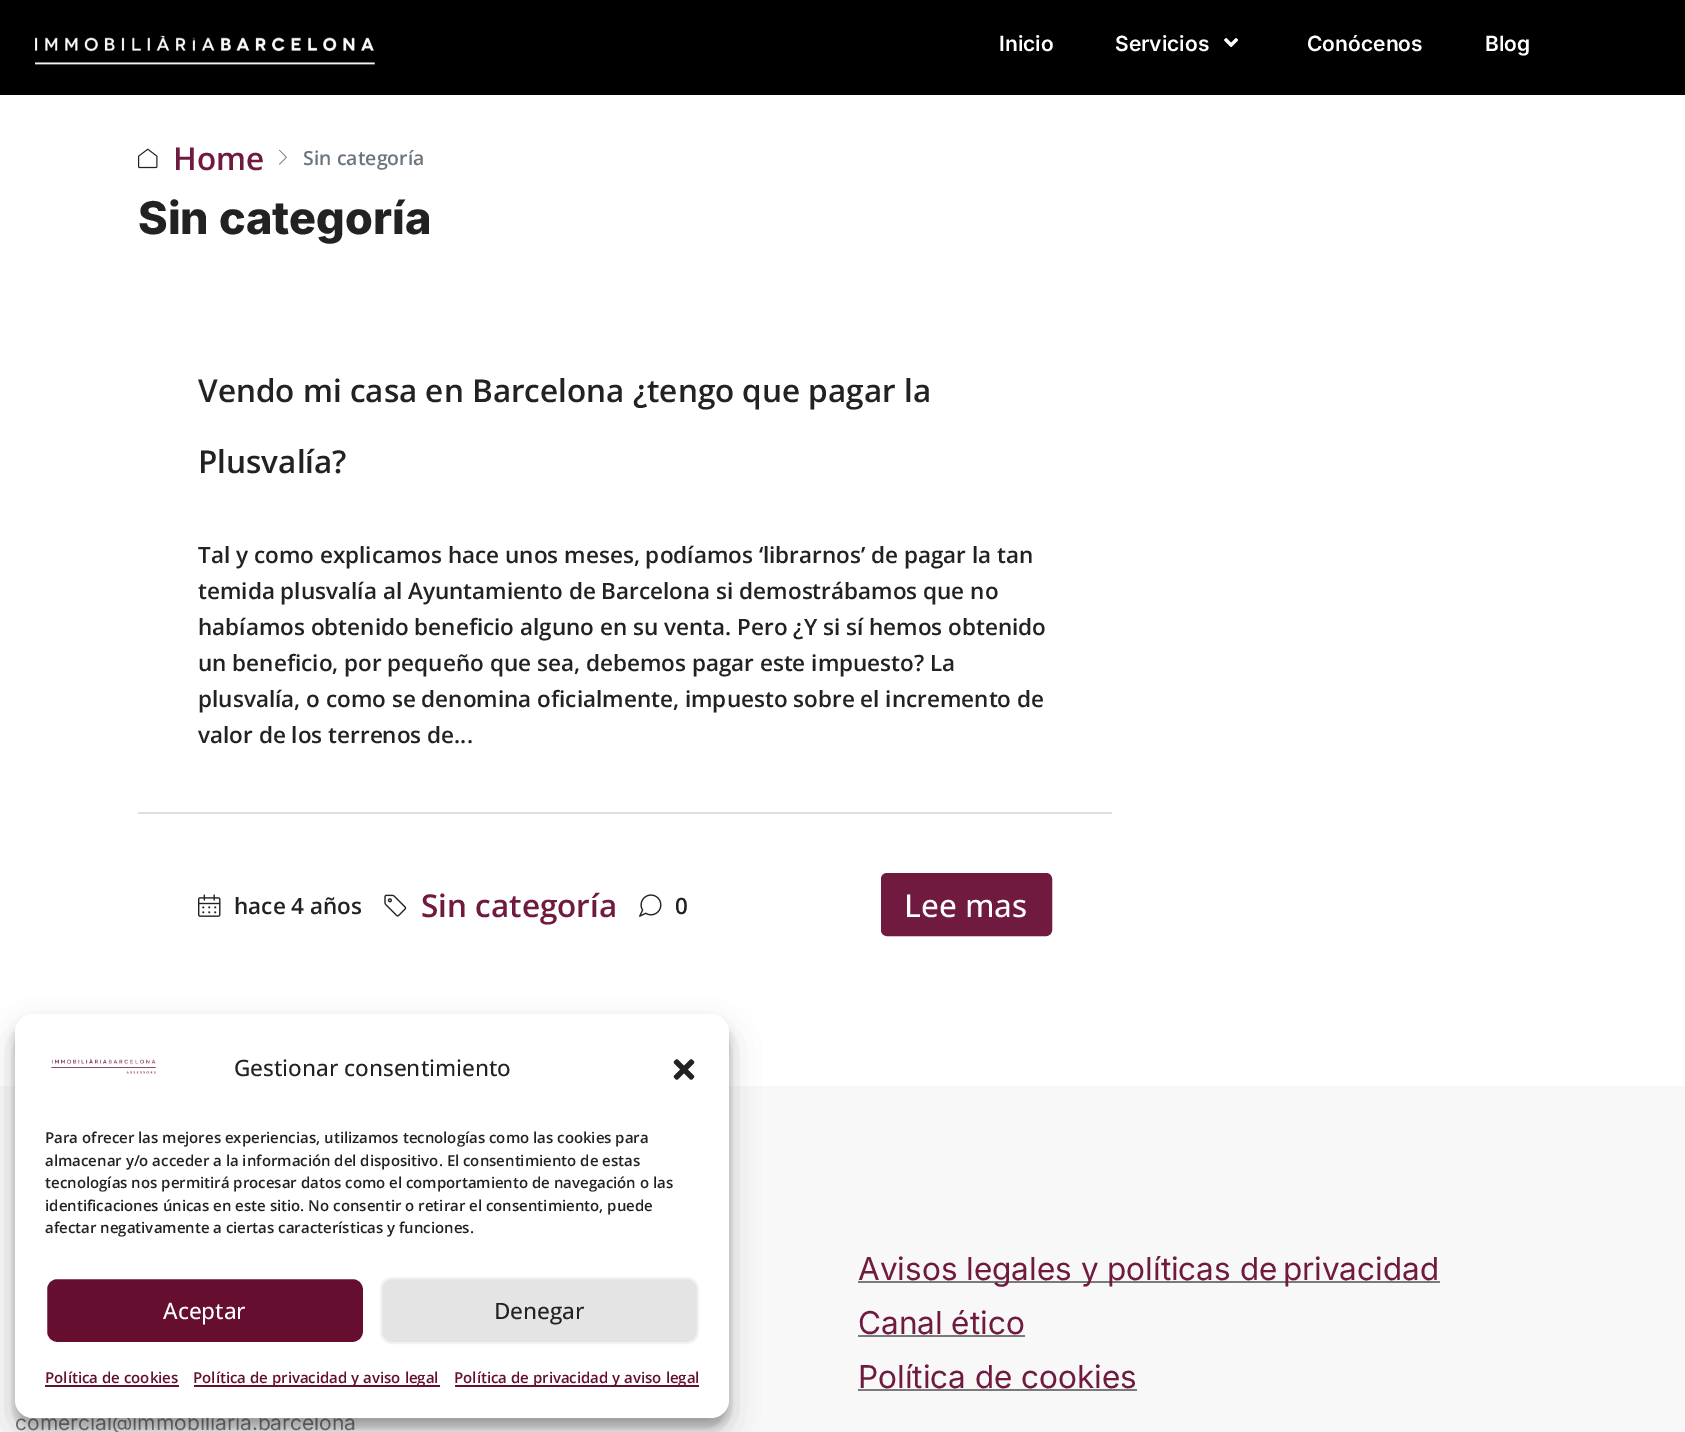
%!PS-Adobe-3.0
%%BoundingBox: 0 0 1685 1432
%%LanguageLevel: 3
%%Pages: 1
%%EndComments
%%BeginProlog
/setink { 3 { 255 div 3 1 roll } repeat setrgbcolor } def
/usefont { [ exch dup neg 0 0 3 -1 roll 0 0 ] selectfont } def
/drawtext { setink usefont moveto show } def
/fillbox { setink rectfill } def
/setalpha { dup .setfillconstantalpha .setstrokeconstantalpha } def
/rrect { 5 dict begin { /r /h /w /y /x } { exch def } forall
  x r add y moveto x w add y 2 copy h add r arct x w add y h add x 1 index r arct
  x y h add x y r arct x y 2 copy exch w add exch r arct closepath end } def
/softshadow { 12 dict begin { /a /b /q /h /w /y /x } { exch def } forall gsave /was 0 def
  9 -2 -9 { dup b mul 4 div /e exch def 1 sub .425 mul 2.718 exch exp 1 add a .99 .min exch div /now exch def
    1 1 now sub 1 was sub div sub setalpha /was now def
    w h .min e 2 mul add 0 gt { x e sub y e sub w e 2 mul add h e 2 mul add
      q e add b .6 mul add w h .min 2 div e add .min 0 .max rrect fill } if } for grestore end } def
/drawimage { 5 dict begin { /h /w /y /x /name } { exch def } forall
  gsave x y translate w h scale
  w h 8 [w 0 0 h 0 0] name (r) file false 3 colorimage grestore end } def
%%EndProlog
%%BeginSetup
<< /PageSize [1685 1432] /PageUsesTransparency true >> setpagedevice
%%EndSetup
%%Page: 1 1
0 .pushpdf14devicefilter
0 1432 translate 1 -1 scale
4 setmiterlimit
0 0 1685 1432 255 255 255 fillbox
0 0 1685 95 0 0 0 fillbox
(assets/img1.rgb) 35 35 340 30 drawimage
(Inicio) 999 51 /Inter-SemiBold 21 255 255 255 drawtext
(Servicios) 1115 51 /Inter-SemiBold 21 255 255 255 drawtext
(assets/img2.rgb) 1224 38 15 10 drawimage
(Conócenos) 1307 51 /Inter-SemiBold 21 255 255 255 drawtext
(Blog) 1485 51 /Inter-SemiBold 21 255 255 255 drawtext
(assets/img3.rgb) 138 148 20 21 drawimage
(Home) 173 170 /OpenSans-SemiBold 31.5 112 26 63 drawtext
(assets/img4.rgb) 279 149 8 16 drawimage
(Sin categoría) 303 165 /OpenSans-SemiBold 19.5 108 117 125 drawtext
(Sin categoría) 138 234 /Inter-ExtraBold 45 34 34 34 drawtext
(Vendo mi casa en Barcelona ¿tengo que pagar la) 198 402 /OpenSans-SemiBold 31.5 34 34 34 drawtext
(Plusvalía?) 198 473 /OpenSans-SemiBold 31.5 34 34 34 drawtext
(Tal y como explicamos hace unos meses, podíamos ‘librarnos’ de pagar la tan) 198 563 /OpenSans-SemiBold 22.5 34 34 34 drawtext
(temida plusvalía al Ayuntamiento de Barcelona si demostrábamos que no) 198 599 /OpenSans-SemiBold 22.5 34 34 34 drawtext
(habíamos obtenido beneficio alguno en su venta. Pero ¿Y si sí hemos obtenido) 198 635 /OpenSans-SemiBold 22.5 34 34 34 drawtext
(un beneficio, por pequeño que sea, debemos pagar este impuesto? La) 198 671 /OpenSans-SemiBold 22.5 34 34 34 drawtext
(plusvalía, o como se denomina oficialmente, impuesto sobre el incremento de) 198 707 /OpenSans-SemiBold 22.5 34 34 34 drawtext
(valor de los terrenos de...) 198 743 /OpenSans-SemiBold 22.5 34 34 34 drawtext
138 812 974 2 220 224 224 fillbox
(assets/img5.rgb) 198 894 23 23 drawimage
(hace 4 años) 234 914 /OpenSans-SemiBold 22.5 34 34 34 drawtext
(assets/img6.rgb) 384 894 23 23 drawimage
(Sin categoría) 421 917 /OpenSans-SemiBold 31.5 112 26 63 drawtext
(assets/img7.rgb) 639 894 23 23 drawimage
(0) 675 914 /OpenSans-SemiBold 22.5 34 34 34 drawtext
112 26 63 setink
882 874 169 61 5 rrect gsave fill grestore
2 setlinewidth
stroke
(Lee mas) 904 917 /OpenSans-Medium 31.5 255 255 255 drawtext
0 1086 1685 346 248 248 248 fillbox
858 1281 582 2 122 122 122 fillbox
(Avisos legales y políticas de) 858 1280 /Inter-Regular 31.5 112 26 63 drawtext
(privacidad) 1283 1280 /Inter-Regular 31.5 112 26 63 drawtext
(Canal ético) 858 1334 /Inter-Regular 31.5 112 26 63 drawtext
858 1335 167 2 122 122 122 fillbox
(Política de cookies) 858 1388 /Inter-Regular 31.5 112 26 63 drawtext
858 1389 279 2 122 122 122 fillbox
(comercial@immobiliaria.barcelona) 15 1430 /Inter-Regular 21 122 122 122 drawtext
0 0 0 setink
15 1023 714 404 18 4.5 0.23 softshadow
15 1029 714 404 18 15 0.19 softshadow
255 255 255 setink
15 1014 714 404 18 rrect fill
(assets/img8.rgb) 51 1058 105 16 drawimage
(Gestionar consentimiento) 234 1076 /OpenSans-Medium 22.5 34 34 34 drawtext
(assets/img9.rgb) 673 1059 22 21 drawimage
(Para ofrecer las mejores experiencias, utilizamos tecnologías como las cookies para) 45 1143 /OpenSans-SemiBold 15 34 34 34 drawtext
(almacenar y/o acceder a la información del dispositivo. El consentimiento de estas) 45 1166 /OpenSans-SemiBold 15 34 34 34 drawtext
(tecnologías nos permitirá procesar datos como el comportamiento de navegación o las) 45 1188 /OpenSans-SemiBold 15 34 34 34 drawtext
(identificaciones únicas en este sitio. No consentir o retirar el consentimiento, puede) 45 1211 /OpenSans-SemiBold 15 34 34 34 drawtext
(afectar negativamente a ciertas características y funciones.) 45 1233 /OpenSans-SemiBold 15 34 34 34 drawtext
101 14 47 setink
46 1278 318 65 11 rrect gsave fill grestore
255 255 255 setink
stroke
(Aceptar) 163 1319 /OpenSans-Medium 22.5 255 255 255 drawtext
229 228 228 setink
381 1278 317 65 11 rrect gsave fill grestore
242 242 242 setink
stroke
(Denegar) 494 1319 /OpenSans-Medium 22.5 34 34 34 drawtext
(Política de cookies) 45 1383 /OpenSans-SemiBold 15 101 14 47 drawtext
45 1385 134 2 101 14 47 fillbox
194 1385 246 2 101 14 47 fillbox
(Política de privacidad y aviso legal) 193 1383 /OpenSans-SemiBold 15 101 14 47 drawtext
455 1385 244 2 101 14 47 fillbox
(Política de privacidad y aviso legal) 454 1383 /OpenSans-SemiBold 15 101 14 47 drawtext
.poppdf14devicefilter showpage
%%EOF
